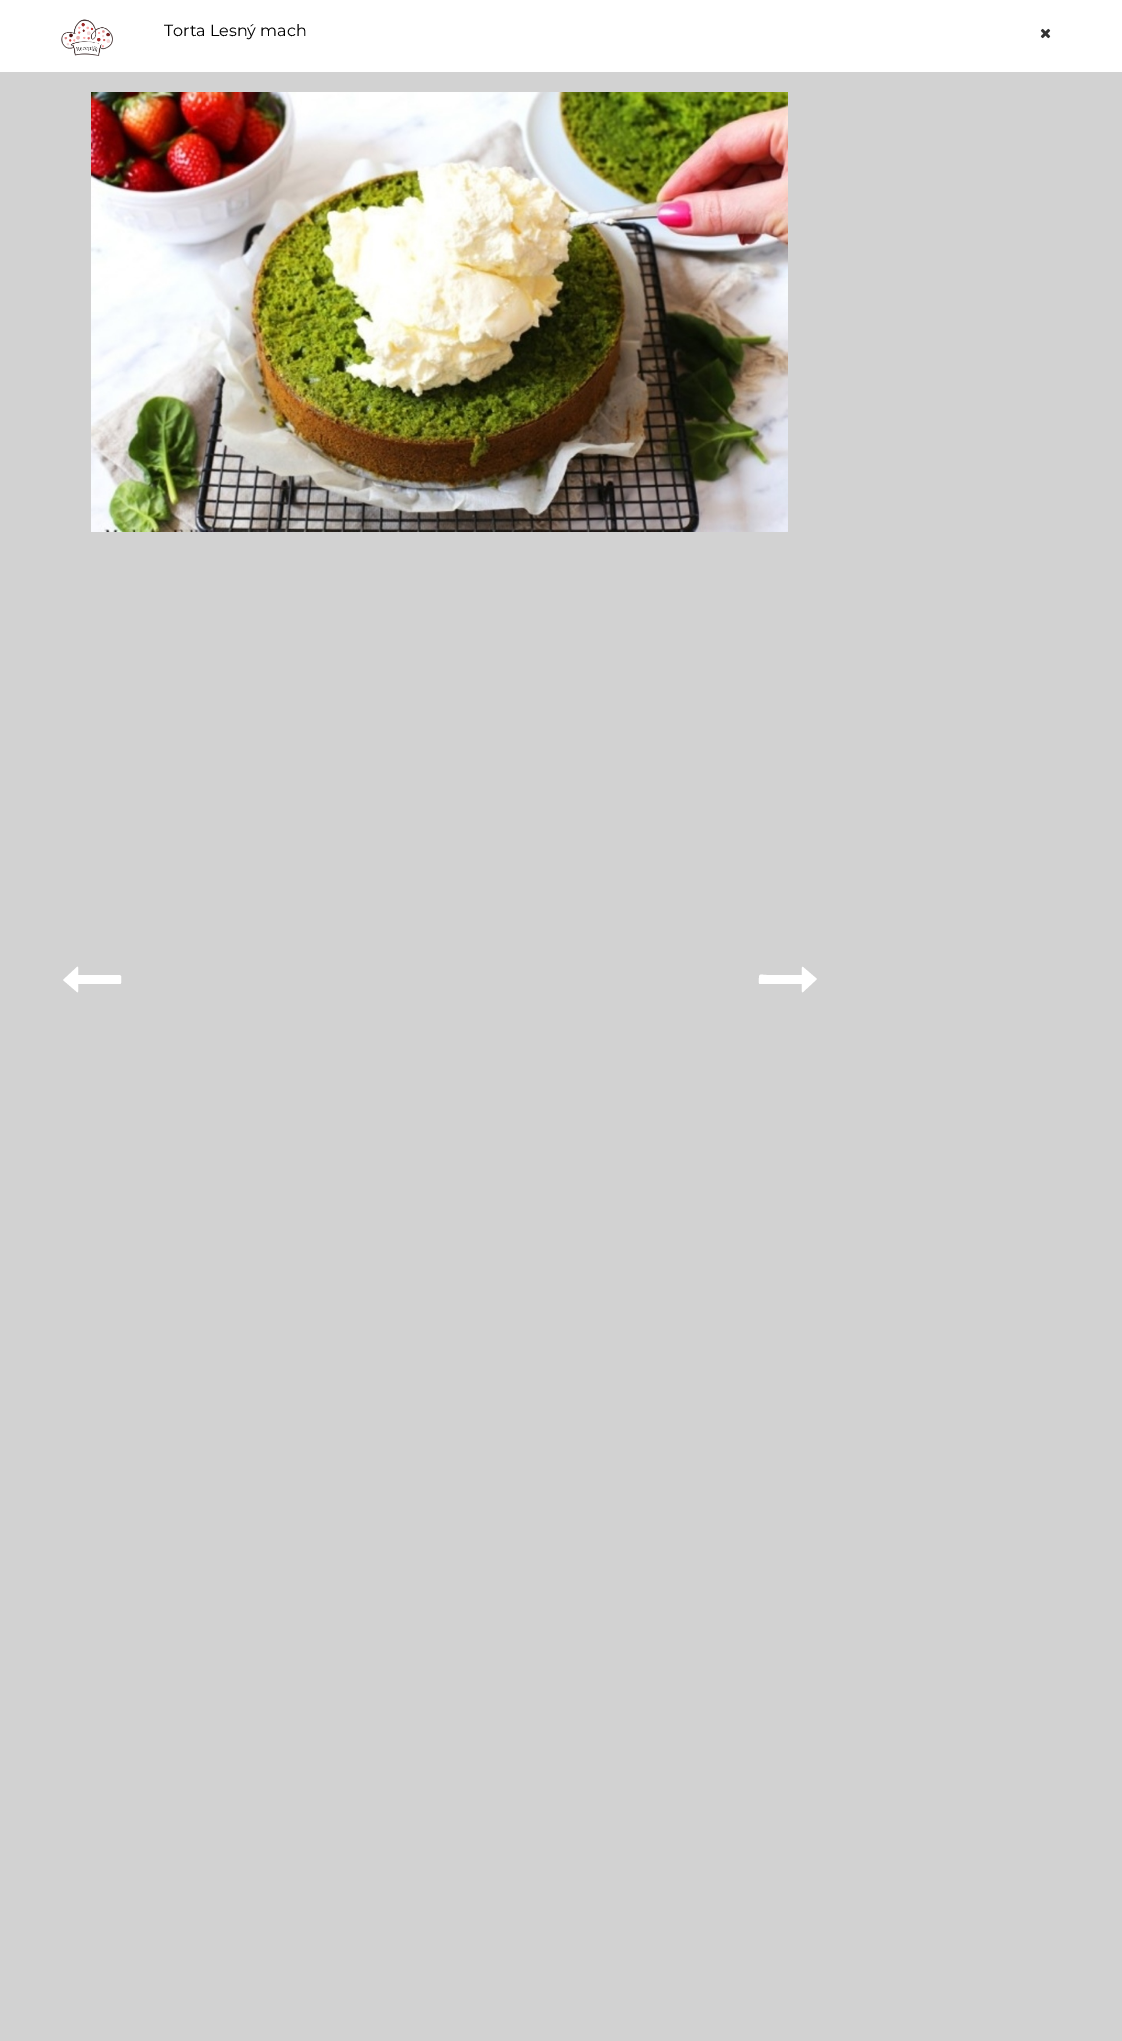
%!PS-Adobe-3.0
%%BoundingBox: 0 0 1122 2041
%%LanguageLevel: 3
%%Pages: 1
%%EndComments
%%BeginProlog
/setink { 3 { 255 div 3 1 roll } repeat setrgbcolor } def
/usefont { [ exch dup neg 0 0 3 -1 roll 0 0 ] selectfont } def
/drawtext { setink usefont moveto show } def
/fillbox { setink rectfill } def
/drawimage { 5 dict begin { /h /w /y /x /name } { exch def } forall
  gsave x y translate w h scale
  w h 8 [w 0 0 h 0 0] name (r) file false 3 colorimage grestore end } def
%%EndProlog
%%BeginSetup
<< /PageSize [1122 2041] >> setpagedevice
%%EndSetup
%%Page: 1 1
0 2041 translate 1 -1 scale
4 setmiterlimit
0 0 1122 2041 210 210 210 fillbox
0 0 1122 72 255 255 255 fillbox
(assets/img1.rgb) 61 19 52 37 drawimage
(Torta Lesný mach) 164 36 /Montserrat-Thin 16 0 0 0 drawtext
(assets/img2.rgb) 1040 28 11 11 drawimage
(assets/img3.rgb) 91 92 697 440 drawimage
255 255 255 setink
121 976 moveto 121 977 122 984 120 984 curveto 78 984 lineto 78 985 79 994 77 992 curveto 63 980 lineto 77 967 lineto 79 965 78 974 78 975 curveto 120 975 lineto closepath fill
817 979 moveto 803 992 lineto 801 994 802 985 802 984 curveto 760 984 lineto 758 984 759 979 759 978 curveto 759 973 761 975 767 975 curveto 802 975 lineto 802 974 801 966 803 967 curveto closepath fill
showpage
%%EOF
